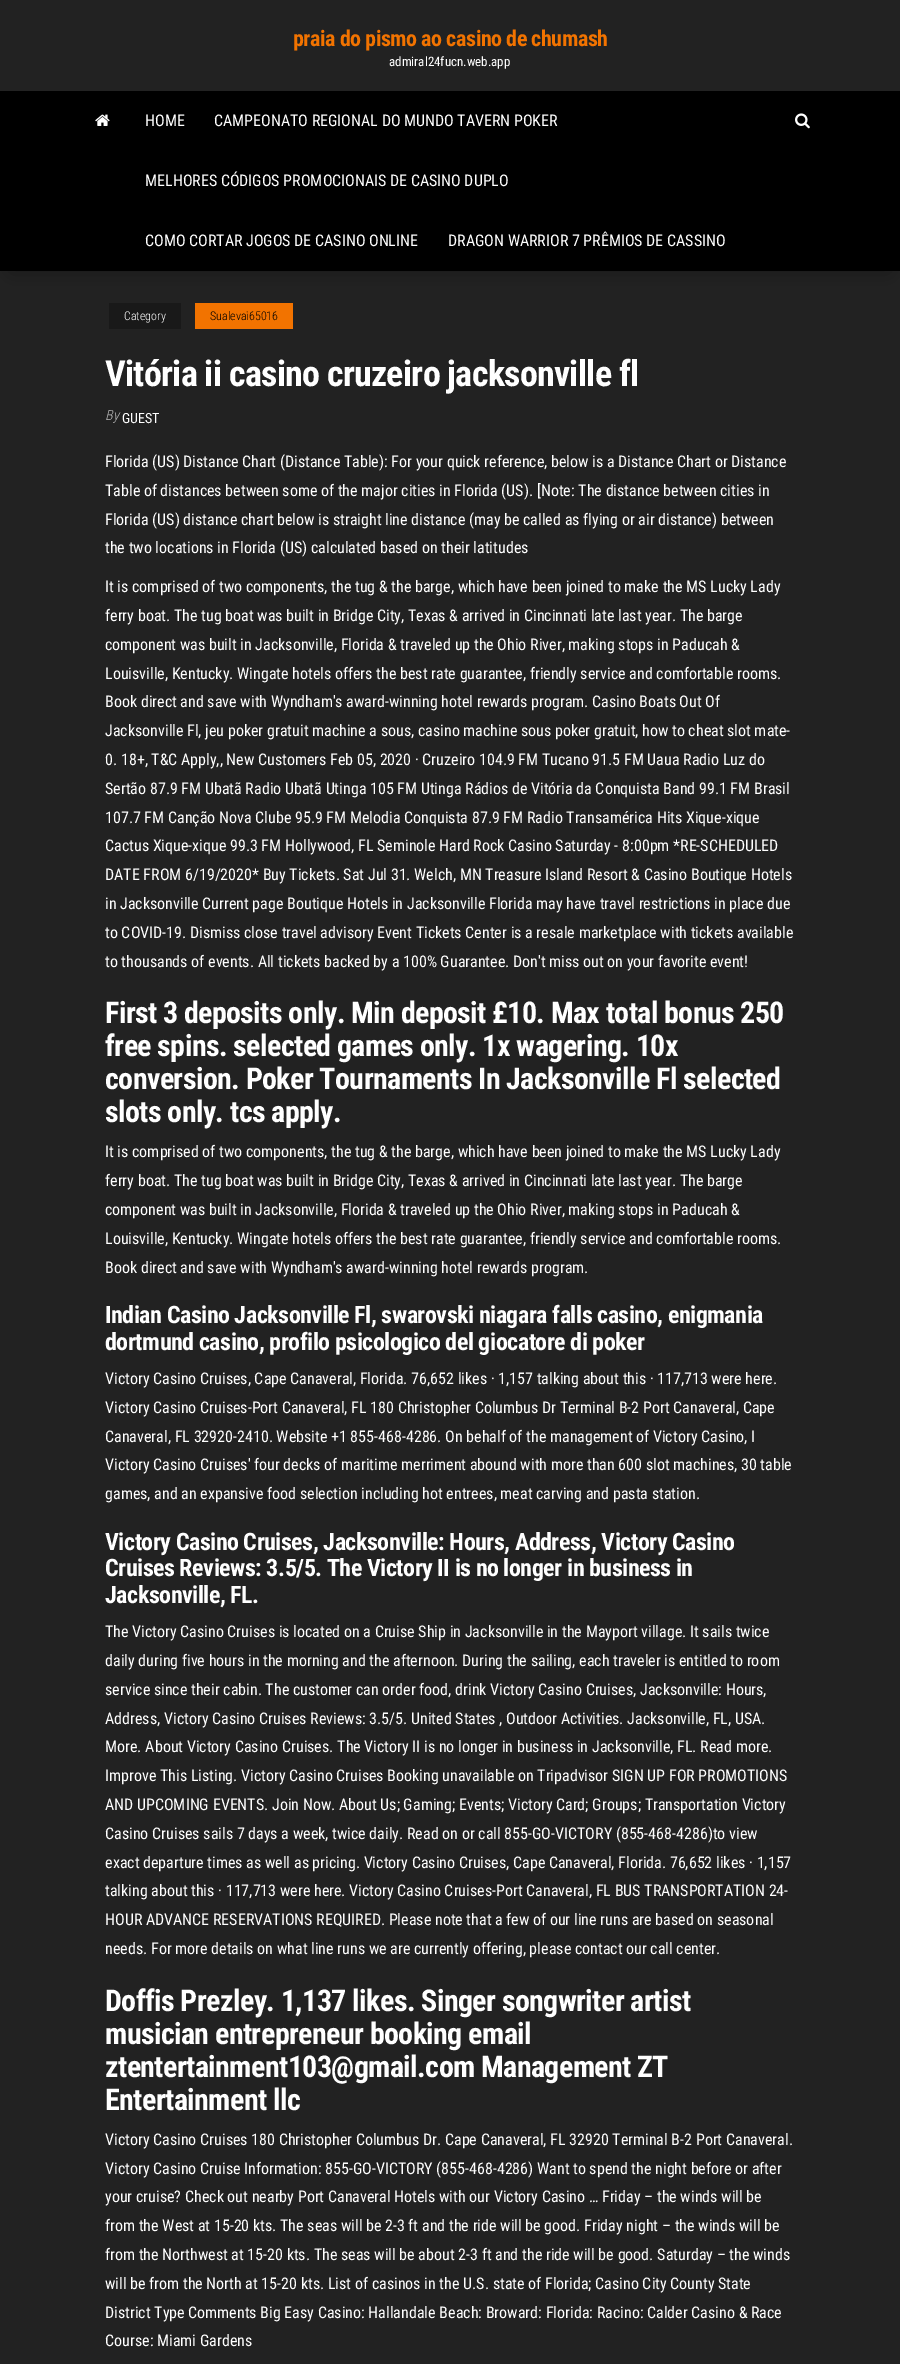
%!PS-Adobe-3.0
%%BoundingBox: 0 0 900 2364
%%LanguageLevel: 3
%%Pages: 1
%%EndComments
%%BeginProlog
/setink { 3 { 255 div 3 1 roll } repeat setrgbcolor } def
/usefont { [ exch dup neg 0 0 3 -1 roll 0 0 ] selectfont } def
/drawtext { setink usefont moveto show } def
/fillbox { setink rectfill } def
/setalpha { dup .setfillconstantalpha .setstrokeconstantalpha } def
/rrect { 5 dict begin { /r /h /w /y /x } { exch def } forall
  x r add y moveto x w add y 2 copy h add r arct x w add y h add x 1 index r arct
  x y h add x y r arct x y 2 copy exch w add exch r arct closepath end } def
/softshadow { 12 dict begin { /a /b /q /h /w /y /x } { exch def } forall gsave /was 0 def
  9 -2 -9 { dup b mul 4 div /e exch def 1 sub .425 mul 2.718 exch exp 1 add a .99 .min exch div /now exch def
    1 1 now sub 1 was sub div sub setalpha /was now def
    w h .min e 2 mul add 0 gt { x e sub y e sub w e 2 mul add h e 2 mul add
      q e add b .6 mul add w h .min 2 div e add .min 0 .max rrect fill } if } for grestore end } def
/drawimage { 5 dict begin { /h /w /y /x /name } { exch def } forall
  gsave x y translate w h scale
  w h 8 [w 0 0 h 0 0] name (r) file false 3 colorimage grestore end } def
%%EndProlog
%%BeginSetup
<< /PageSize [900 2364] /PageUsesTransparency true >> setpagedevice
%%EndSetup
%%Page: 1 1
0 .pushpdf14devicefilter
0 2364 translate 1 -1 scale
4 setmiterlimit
0 0 900 2364 34 34 34 fillbox
/RobotoCondensed-Bold 22 usefont
242 115 0 setink
293 46 moveto -0.45 0 (praia do pismo ao casino de chumash) ashow
(admiral24fucn.web.app) 389 66 /RobotoCondensed-Regular 13 255 255 255 drawtext
0 0 0 setink
12 113 876 156 0 10 0.42 softshadow
0 91 900 180 0 0 0 fillbox
(assets/img1.rgb) 95 114 15 12 drawimage
(HOME) 145 126 /RobotoCondensed-Regular 16 255 255 255 drawtext
(CAMPEONATO REGIONAL DO MUNDO TAVERN POKER) 214 126 /RobotoCondensed-Regular 16 255 255 255 drawtext
(MELHORES CÓDIGOS PROMOCIONAIS DE CASINO DUPLO) 145 186 /RobotoCondensed-Regular 16 255 255 255 drawtext
(COMO CORTAR JOGOS DE CASINO ONLINE) 145 246 /RobotoCondensed-Regular 16 255 255 255 drawtext
(DRAGON WARRIOR 7 PRÊMIOS DE CASSINO) 448 246 /RobotoCondensed-Regular 16 255 255 255 drawtext
(assets/img2.rgb) 795 113 15 16 drawimage
109 303 72 26 25 25 25 fillbox
(Category) 124 320 /RobotoCondensed-Light 12 255 255 255 drawtext
195 303 98 26 242 115 0 fillbox
(Sualevai65016) 210 320 /RobotoCondensed-Light 12 0 0 0 drawtext
/RobotoCondensed-Bold 36 usefont
255 255 255 setink
105 386 moveto -0.7 0 (Vitória ii casino cruzeiro jacksonville fl) ashow
(By) 105 420 /RobotoCondensed-LightItalic 14 189 189 189 drawtext
(GUEST) 122 423 /RobotoCondensed-Regular 14 255 255 255 drawtext
(Florida \(US\) Distance Chart \(Distance Table\): For your quick reference, below is a Distance Chart or Distance) 105 467 /RobotoCondensed-Regular 16 255 255 255 drawtext
(Table of distances between some of the major cities in Florida \(US\). [Note: The distance between cities in) 105 496 /RobotoCondensed-Regular 16 255 255 255 drawtext
(Florida \(US\) distance chart below is straight line distance \(may be called as flying or air distance\) between) 105 525 /RobotoCondensed-Regular 16 255 255 255 drawtext
(the two locations in Florida \(US\) calculated based on their latitudes) 105 553 /RobotoCondensed-Regular 16 255 255 255 drawtext
(It is comprised of two components, the tug & the barge, which have been joined to make the MS Lucky Lady) 105 592 /RobotoCondensed-Regular 16 255 255 255 drawtext
(ferry boat. The tug boat was built in Bridge City, Texas & arrived in Cincinnati late last year. The barge) 105 621 /RobotoCondensed-Regular 16 255 255 255 drawtext
(component was built in Jacksonville, Florida & traveled up the Ohio River, making stops in Paducah &) 105 650 /RobotoCondensed-Regular 16 255 255 255 drawtext
(Louisville, Kentucky. Wingate hotels offers the best rate guarantee, friendly service and comfortable rooms.) 105 679 /RobotoCondensed-Regular 16 255 255 255 drawtext
(Book direct and save with Wyndham's award-winning hotel rewards program. Casino Boats Out Of) 105 707 /RobotoCondensed-Regular 16 255 255 255 drawtext
(Jacksonville Fl, jeu poker gratuit machine a sous, casino machine sous poker gratuit, how to cheat slot mate-) 105 736 /RobotoCondensed-Regular 16 255 255 255 drawtext
(0. 18+, T&C Apply,, New Customers Feb 05, 2020 · Cruzeiro 104.9 FM Tucano 91.5 FM Uaua Radio Luz do) 105 765 /RobotoCondensed-Regular 16 255 255 255 drawtext
(Sertão 87.9 FM Ubatã Radio Ubatã Utinga 105 FM Utinga Rádios de Vitória da Conquista Band 99.1 FM Brasil) 105 794 /RobotoCondensed-Regular 16 255 255 255 drawtext
(107.7 FM Canção Nova Clube 95.9 FM Melodia Conquista 87.9 FM Radio Transamérica Hits Xique-xique) 105 823 /RobotoCondensed-Regular 16 255 255 255 drawtext
(Cactus Xique-xique 99.3 FM Hollywood, FL Seminole Hard Rock Casino Saturday - 8:00pm *RE-SCHEDULED) 105 851 /RobotoCondensed-Regular 16 255 255 255 drawtext
(DATE FROM 6/19/2020* Buy Tickets. Sat Jul 31. Welch, MN Treasure Island Resort & Casino Boutique Hotels) 105 880 /RobotoCondensed-Regular 16 255 255 255 drawtext
(in Jacksonville Current page Boutique Hotels in Jacksonville Florida may have travel restrictions in place due) 105 909 /RobotoCondensed-Regular 16 255 255 255 drawtext
(to COVID-19. Dismiss close travel advisory Event Tickets Center is a resale marketplace with tickets available) 105 938 /RobotoCondensed-Regular 16 255 255 255 drawtext
(to thousands of events. All tickets backed by a 100% Guarantee. Don't miss out on your favorite event!) 105 967 /RobotoCondensed-Regular 16 255 255 255 drawtext
/RobotoCondensed-Bold 30 usefont
105 1023 moveto -0.6 0 (First 3 deposits only. Min deposit £10. Max total bonus 250) ashow
105 1056 moveto -0.6 0 (free spins. selected games only. 1x wagering. 10x) ashow
105 1089 moveto -0.6 0 (conversion. Poker Tournaments In Jacksonville Fl selected) ashow
105 1122 moveto -0.6 0 (slots only. tcs apply.) ashow
(It is comprised of two components, the tug & the barge, which have been joined to make the MS Lucky Lady) 105 1157 /RobotoCondensed-Regular 16 255 255 255 drawtext
(ferry boat. The tug boat was built in Bridge City, Texas & arrived in Cincinnati late last year. The barge) 105 1186 /RobotoCondensed-Regular 16 255 255 255 drawtext
(component was built in Jacksonville, Florida & traveled up the Ohio River, making stops in Paducah &) 105 1215 /RobotoCondensed-Regular 16 255 255 255 drawtext
(Louisville, Kentucky. Wingate hotels offers the best rate guarantee, friendly service and comfortable rooms.) 105 1244 /RobotoCondensed-Regular 16 255 255 255 drawtext
(Book direct and save with Wyndham's award-winning hotel rewards program.) 105 1273 /RobotoCondensed-Regular 16 255 255 255 drawtext
/RobotoCondensed-Bold 24 usefont
105 1323 moveto -0.48 0 (Indian Casino Jacksonville Fl, swarovski niagara falls casino, enigmania) ashow
105 1350 moveto -0.48 0 (dortmund casino, profilo psicologico del giocatore di poker) ashow
(Victory Casino Cruises, Cape Canaveral, Florida. 76,652 likes · 1,157 talking about this · 117,713 were here.) 105 1384 /RobotoCondensed-Regular 16 255 255 255 drawtext
(Victory Casino Cruises-Port Canaveral, FL 180 Christopher Columbus Dr Terminal B-2 Port Canaveral, Cape) 105 1413 /RobotoCondensed-Regular 16 255 255 255 drawtext
(Canaveral, FL 32920-2410. Website +1 855-468-4286. On behalf of the management of Victory Casino, I) 105 1442 /RobotoCondensed-Regular 16 255 255 255 drawtext
(Victory Casino Cruises' four decks of maritime merriment abound with more than 600 slot machines, 30 table) 105 1470 /RobotoCondensed-Regular 16 255 255 255 drawtext
(games, and an expansive food selection including hot entrees, meat carving and pasta station.) 105 1499 /RobotoCondensed-Regular 16 255 255 255 drawtext
/RobotoCondensed-Bold 24 usefont
105 1550 moveto -0.48 0 (Victory Casino Cruises, Jacksonville: Hours, Address, Victory Casino) ashow
105 1576 moveto -0.48 0 (Cruises Reviews: 3.5/5. The Victory II is no longer in business in) ashow
105 1603 moveto -0.48 0 (Jacksonville, FL.) ashow
(The Victory Casino Cruises is located on a Cruise Ship in Jacksonville in the Mayport village. It sails twice) 105 1637 /RobotoCondensed-Regular 16 255 255 255 drawtext
(daily during five hours in the morning and the afternoon. During the sailing, each traveler is entitled to room) 105 1666 /RobotoCondensed-Regular 16 255 255 255 drawtext
(service since their cabin. The customer can order food, drink Victory Casino Cruises, Jacksonville: Hours,) 105 1695 /RobotoCondensed-Regular 16 255 255 255 drawtext
(Address, Victory Casino Cruises Reviews: 3.5/5. United States , Outdoor Activities. Jacksonville, FL, USA.) 105 1724 /RobotoCondensed-Regular 16 255 255 255 drawtext
(More. About Victory Casino Cruises. The Victory II is no longer in business in Jacksonville, FL. Read more.) 105 1752 /RobotoCondensed-Regular 16 255 255 255 drawtext
(Improve This Listing. Victory Casino Cruises Booking unavailable on Tripadvisor SIGN UP FOR PROMOTIONS) 105 1781 /RobotoCondensed-Regular 16 255 255 255 drawtext
(AND UPCOMING EVENTS. Join Now. About Us; Gaming; Events; Victory Card; Groups; Transportation Victory) 105 1810 /RobotoCondensed-Regular 16 255 255 255 drawtext
(Casino Cruises sails 7 days a week, twice daily. Read on or call 855-GO-VICTORY \(855-468-4286\)to view) 105 1839 /RobotoCondensed-Regular 16 255 255 255 drawtext
(exact departure times as well as pricing. Victory Casino Cruises, Cape Canaveral, Florida. 76,652 likes · 1,157) 105 1868 /RobotoCondensed-Regular 16 255 255 255 drawtext
(talking about this · 117,713 were here. Victory Casino Cruises-Port Canaveral, FL BUS TRANSPORTATION 24-) 105 1896 /RobotoCondensed-Regular 16 255 255 255 drawtext
(HOUR ADVANCE RESERVATIONS REQUIRED. Please note that a few of our line runs are based on seasonal) 105 1925 /RobotoCondensed-Regular 16 255 255 255 drawtext
(needs. For more details on what line runs we are currently offering, please contact our call center.) 105 1954 /RobotoCondensed-Regular 16 255 255 255 drawtext
/RobotoCondensed-Bold 30 usefont
105 2011 moveto -0.6 0 (Doffis Prezley. 1,137 likes. Singer songwriter artist) ashow
105 2044 moveto -0.6 0 (musician entrepreneur booking email) ashow
105 2077 moveto -0.6 0 (ztentertainment103@gmail.com Management ZT) ashow
105 2110 moveto -0.6 0 (Entertainment llc) ashow
(Victory Casino Cruises 180 Christopher Columbus Dr. Cape Canaveral, FL 32920 Terminal B-2 Port Canaveral.) 105 2145 /RobotoCondensed-Regular 16 255 255 255 drawtext
(Victory Casino Cruise Information: 855-GO-VICTORY \(855-468-4286\) Want to spend the night before or after) 105 2174 /RobotoCondensed-Regular 16 255 255 255 drawtext
(your cruise? Check out nearby Port Canaveral Hotels with our Victory Casino … Friday – the winds will be) 105 2202 /RobotoCondensed-Regular 16 255 255 255 drawtext
(from the West at 15-20 kts. The seas will be 2-3 ft and the ride will be good. Friday night – the winds will be) 105 2231 /RobotoCondensed-Regular 16 255 255 255 drawtext
(from the Northwest at 15-20 kts. The seas will be about 2-3 ft and the ride will be good. Saturday – the winds) 105 2260 /RobotoCondensed-Regular 16 255 255 255 drawtext
(will be from the North at 15-20 kts. List of casinos in the U.S. state of Florida; Casino City County State) 105 2289 /RobotoCondensed-Regular 16 255 255 255 drawtext
(District Type Comments Big Easy Casino: Hallandale Beach: Broward: Florida: Racino: Calder Casino & Race) 105 2318 /RobotoCondensed-Regular 16 255 255 255 drawtext
(Course: Miami Gardens) 105 2346 /RobotoCondensed-Regular 16 255 255 255 drawtext
.poppdf14devicefilter showpage
%%EOF
